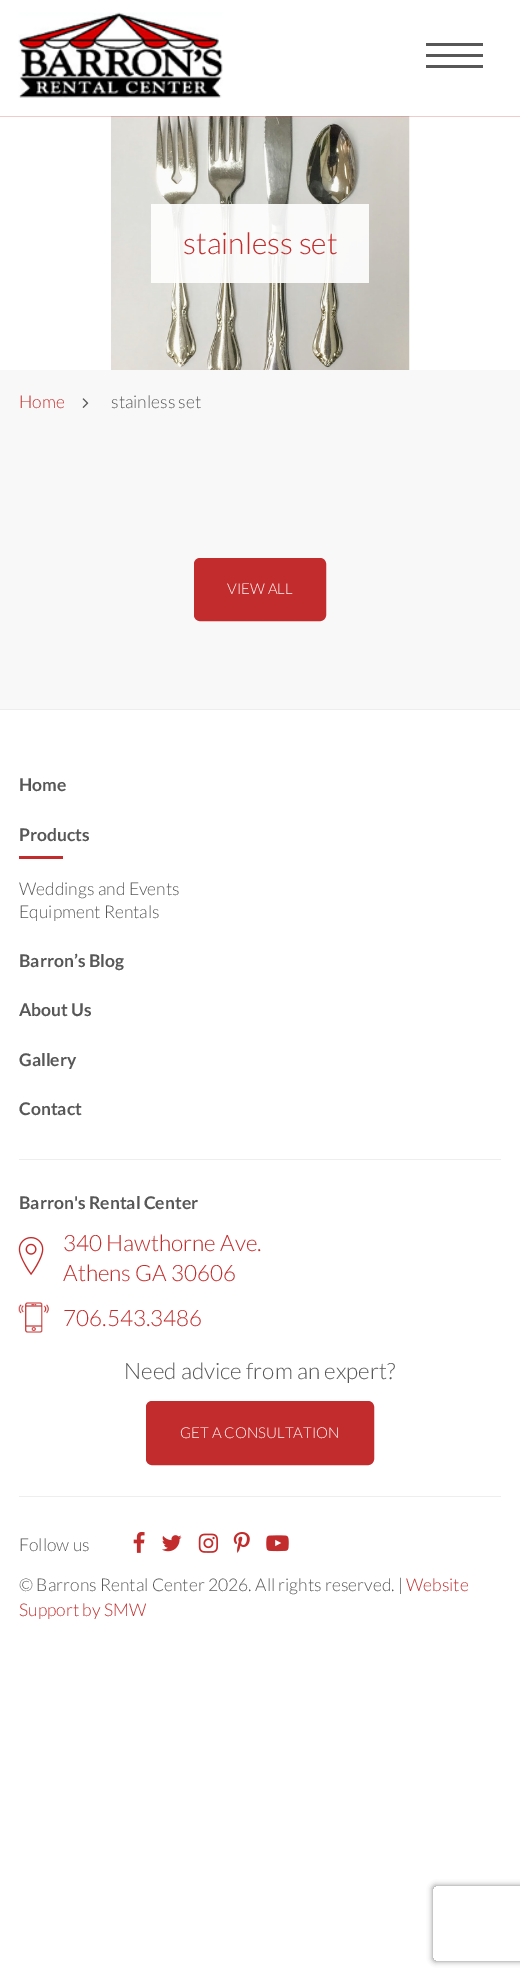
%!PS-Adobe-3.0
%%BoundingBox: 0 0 520 1978
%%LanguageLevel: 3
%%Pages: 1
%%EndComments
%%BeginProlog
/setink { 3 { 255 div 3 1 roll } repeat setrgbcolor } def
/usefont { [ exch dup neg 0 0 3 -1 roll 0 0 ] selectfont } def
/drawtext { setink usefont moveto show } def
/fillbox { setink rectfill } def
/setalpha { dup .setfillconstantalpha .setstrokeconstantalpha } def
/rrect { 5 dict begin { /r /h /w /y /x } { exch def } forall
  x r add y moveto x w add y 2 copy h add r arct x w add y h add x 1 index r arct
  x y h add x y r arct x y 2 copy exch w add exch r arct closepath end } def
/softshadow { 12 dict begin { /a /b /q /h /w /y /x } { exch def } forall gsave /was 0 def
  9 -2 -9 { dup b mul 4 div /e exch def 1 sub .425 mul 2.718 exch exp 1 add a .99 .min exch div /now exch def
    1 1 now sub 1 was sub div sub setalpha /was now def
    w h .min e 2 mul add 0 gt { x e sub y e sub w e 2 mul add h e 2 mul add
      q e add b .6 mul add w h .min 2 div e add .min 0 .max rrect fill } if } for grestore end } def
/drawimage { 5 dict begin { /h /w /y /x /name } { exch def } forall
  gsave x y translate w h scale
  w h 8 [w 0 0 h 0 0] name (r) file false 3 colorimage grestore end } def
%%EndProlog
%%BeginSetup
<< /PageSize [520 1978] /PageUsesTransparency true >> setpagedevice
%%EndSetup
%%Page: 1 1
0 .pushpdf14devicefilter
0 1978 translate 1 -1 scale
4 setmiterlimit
0 0 520 1978 255 255 255 fillbox
(assets/img1.rgb) 18 12 205 86 drawimage
426 54 57 3 87 87 87 fillbox
426 43 57 3 87 87 87 fillbox
426 65 57 3 87 87 87 fillbox
(assets/img2.rgb) 0 116 520 254 drawimage
0.9 setalpha
151 204 218 79 255 255 255 fillbox
1 setalpha
(stainless set) 183 254 /Lato-Light 30 195 44 44 drawtext
0 370 520 339 248 248 248 fillbox
(Home) 19 408 /Lato-Light 17.5 195 44 44 drawtext
(assets/img3.rgb) 82 398 7 10 drawimage
(stainless set) 111 408 /Lato-Light 17.5 87 87 87 drawtext
195 44 44 setink
195.5 559.5 129 60 4.5 rrect gsave fill grestore
3 setlinewidth
stroke
(VIEW ALL) 227 594 /Lato-Light 15 255 255 255 drawtext
0 709 520 1 237 237 237 fillbox
(Home) 19 791 /Lato-Bold 17.5 87 87 87 drawtext
(Products) 19 841 /Lato-Bold 17.5 87 87 87 drawtext
19 856 44 3 195 44 44 fillbox
(Weddings and Events) 19 895 /Lato-Light 17.5 87 87 87 drawtext
(Equipment Rentals) 19 918 /Lato-Light 17.5 87 87 87 drawtext
(Barron’s Blog) 19 967 /Lato-Bold 17.5 87 87 87 drawtext
(About Us) 19 1016 /Lato-Bold 17.5 87 87 87 drawtext
(Gallery) 19 1066 /Lato-Bold 17.5 87 87 87 drawtext
(Contact) 19 1115 /Lato-Bold 17.5 87 87 87 drawtext
19 1159 482 1 238 238 238 fillbox
19 1496 482 1 238 238 238 fillbox
(Barron's Rental Center) 19 1209 /Lato-Bold 17.5 87 87 87 drawtext
(assets/img4.rgb) 18 1237 26 39 drawimage
(340 Hawthorne Ave.) 63 1251 /Lato-Light 22.5 195 44 44 drawtext
(Athens GA 30606) 63 1281 /Lato-Light 22.5 195 44 44 drawtext
(assets/img5.rgb) 18 1302 31 31 drawimage
(706.543.3486) 63 1326 /Lato-Light 22.5 195 44 44 drawtext
(Need advice from an expert?) 124 1379 /Lato-Light 22.5 87 87 87 drawtext
195 44 44 setink
147.5 1402.5 225 61 4.5 rrect gsave fill grestore
stroke
(GET A CONSULTATION) 180 1438 /Lato-Light 15 255 255 255 drawtext
(Follow us) 19 1551 /Lato-Light 17.5 87 87 87 drawtext
(assets/img6.rgb) 133 1532 12 21 drawimage
(assets/img7.rgb) 162 1535 20 17 drawimage
(assets/img8.rgb) 198 1533 21 20 drawimage
(assets/img9.rgb) 233 1532 17 21 drawimage
(assets/img10.rgb) 266 1535 23 17 drawimage
(© Barrons Rental Center 2026. All rights reserved. |) 19 1591 /Lato-Light 17.5 87 87 87 drawtext
(Website) 406 1591 /Lato-Light 17.5 195 44 44 drawtext
(Support by SMW) 19 1616 /Lato-Light 17.5 195 44 44 drawtext
gsave
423 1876 moveto 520 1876 lineto 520 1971 lineto 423 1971 lineto closepath 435.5 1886 moveto 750.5 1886 lineto 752 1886 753 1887 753 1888.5 curveto 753 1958.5 lineto 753 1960 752 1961 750.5 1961 curveto 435.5 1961 lineto 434 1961 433 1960 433 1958.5 curveto 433 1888.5 lineto 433 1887 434 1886 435.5 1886 curveto closepath eoclip newpath
128 128 128 setink
433 1886 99 75 2.5 3 1 softshadow
grestore
.poppdf14devicefilter showpage
%%EOF
